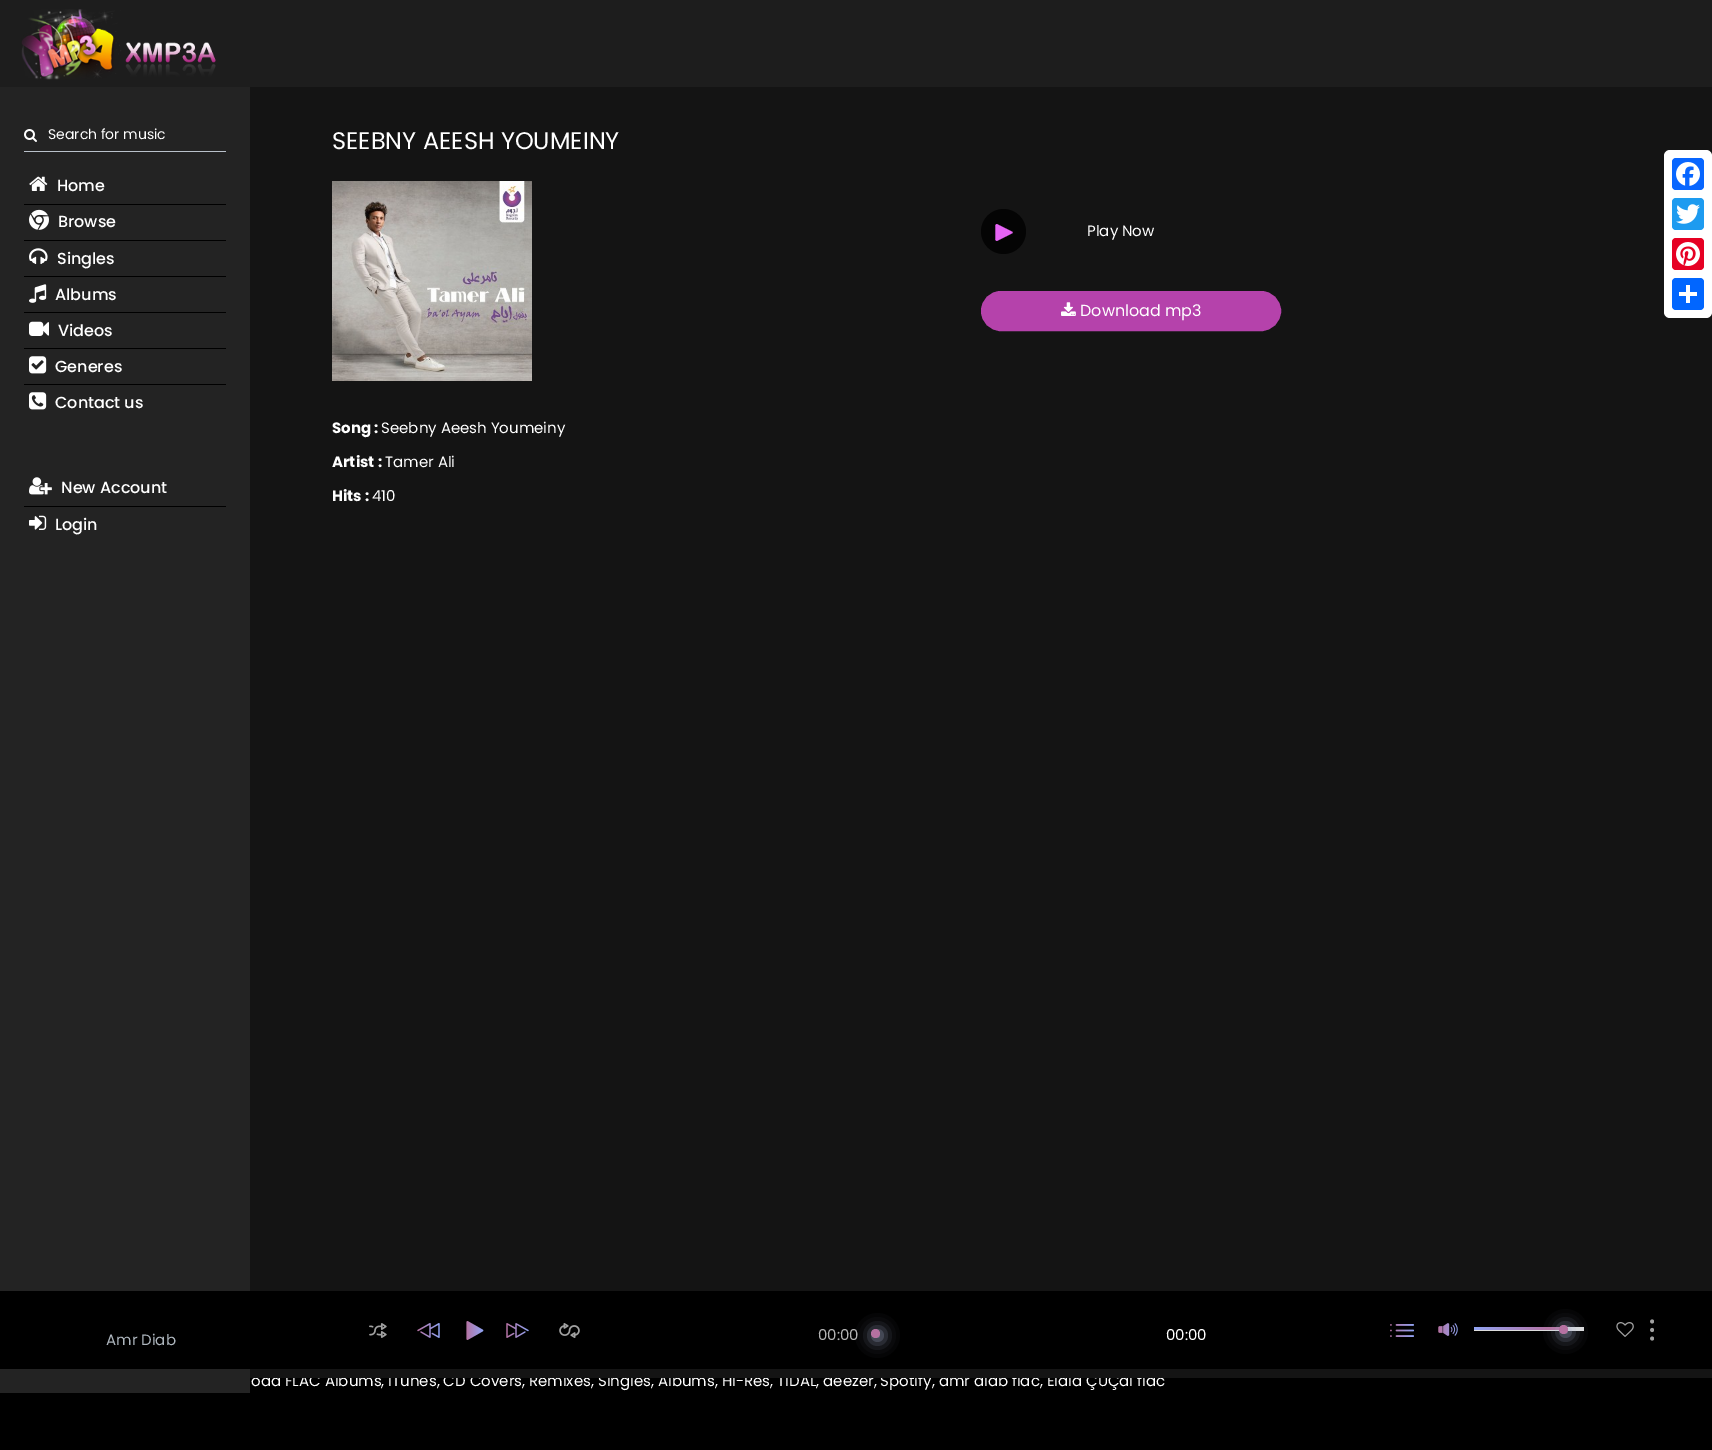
%!PS-Adobe-3.0
%%BoundingBox: 0 0 1712 1450
%%LanguageLevel: 3
%%Pages: 1
%%EndComments
%%BeginProlog
/setink { 3 { 255 div 3 1 roll } repeat setrgbcolor } def
/usefont { [ exch dup neg 0 0 3 -1 roll 0 0 ] selectfont } def
/drawtext { setink usefont moveto show } def
/fillbox { setink rectfill } def
/setalpha { dup .setfillconstantalpha .setstrokeconstantalpha } def
/disc { newpath 0 360 arc closepath } def
/rrect { 5 dict begin { /r /h /w /y /x } { exch def } forall
  x r add y moveto x w add y 2 copy h add r arct x w add y h add x 1 index r arct
  x y h add x y r arct x y 2 copy exch w add exch r arct closepath end } def
/softshadow { 12 dict begin { /a /b /q /h /w /y /x } { exch def } forall gsave /was 0 def
  9 -2 -9 { dup b mul 4 div /e exch def 1 sub .425 mul 2.718 exch exp 1 add a .99 .min exch div /now exch def
    1 1 now sub 1 was sub div sub setalpha /was now def
    w h .min e 2 mul add 0 gt { x e sub y e sub w e 2 mul add h e 2 mul add
      q e add b .6 mul add w h .min 2 div e add .min 0 .max rrect fill } if } for grestore end } def
/drawimage { 5 dict begin { /h /w /y /x /name } { exch def } forall
  gsave x y translate w h scale
  w h 8 [w 0 0 h 0 0] name (r) file false 3 colorimage grestore end } def
%%EndProlog
%%BeginSetup
<< /PageSize [1712 1450] /PageUsesTransparency true >> setpagedevice
%%EndSetup
%%Page: 1 1
0 .pushpdf14devicefilter
0 1450 translate 1 -1 scale
4 setmiterlimit
0 0 1712 1450 0 0 0 fillbox
0 0 1712 87 29 29 29 fillbox
(assets/img1.rgb) 21 9 195 71 drawimage
0 87 250 1306 35 35 35 fillbox
(assets/img2.rgb) 24 129 13 13 drawimage
(Search for music) 48 139 /Poppins-Regular 14 255 255 255 drawtext
24 151 202 1 185 193 202 fillbox
24 204 202 1 0 0 0 fillbox
(assets/img3.rgb) 29 176 19 15 drawimage
(Home) 57 191 /Poppins-Medium 16 255 255 255 drawtext
24 240 202 1 0 0 0 fillbox
(assets/img4.rgb) 29 209 20 21 drawimage
(Browse) 58 227 /Poppins-Medium 16 255 255 255 drawtext
24 276 202 1 0 0 0 fillbox
(assets/img5.rgb) 29 248 19 16 drawimage
(Singles) 57 264 /Poppins-Medium 16 255 255 255 drawtext
24 312 202 1 0 0 0 fillbox
(assets/img6.rgb) 29 284 18 19 drawimage
(Albums) 55 300 /Poppins-Medium 16 255 255 255 drawtext
24 348 202 1 0 0 0 fillbox
(assets/img7.rgb) 29 321 20 15 drawimage
(Videos) 58 336 /Poppins-Medium 16 255 255 255 drawtext
24 384 202 1 0 0 0 fillbox
(assets/img8.rgb) 29 356 18 18 drawimage
(Generes) 55 372 /Poppins-Medium 16 255 255 255 drawtext
(assets/img9.rgb) 29 392 18 18 drawimage
(Contact us) 55 408 /Poppins-Medium 16 255 255 255 drawtext
24 506 202 1 0 0 0 fillbox
(assets/img10.rgb) 29 477 23 18 drawimage
(New Account) 61 493 /Poppins-Medium 16 255 255 255 drawtext
(assets/img11.rgb) 29 515 18 15 drawimage
(Login) 55 530 /Poppins-Medium 16 255 255 255 drawtext
(oad FLAC Albums, iTunes, CD Covers, Remixes, Singles, Albums, Hi-Res, TIDAL, deezer, Spotify, amr diab flac, ÊÍãíá ÇÛÇäí flac) 251 1386 /Poppins-Regular 15 255 255 255 drawtext
250 87 1462 1291 20 20 20 fillbox
(SEEBNY AEESH YOUMEINY) 332 149 /Poppins-Regular 24 255 255 255 drawtext
(assets/img12.rgb) 332 181 200 200 drawimage
(Song :) 332 433 /Poppins-Bold 15 255 255 255 drawtext
(Seebny Aeesh Youmeiny) 381 433 /Poppins-Regular 15 255 255 255 drawtext
(Artist :) 332 467 /Poppins-Bold 15 255 255 255 drawtext
(Tamer Ali) 385 467 /Poppins-Regular 15 255 255 255 drawtext
(Hits :) 332 501 /Poppins-Bold 15 255 255 255 drawtext
(410) 372 501 /Poppins-Regular 15 255 255 255 drawtext
4 4 4 setink
1003.5 231.5 22.5 disc fill
(assets/img13.rgb) 995 224 18 17 drawimage
(Play Now) 1087 236 /Poppins-Regular 15 255 255 255 drawtext
181 66 171 setink
982 292 298 38 19 rrect gsave fill grestore
2 setlinewidth
stroke
(assets/img14.rgb) 1061 302 15 14 drawimage
(Download mp3) 1080 316 /Poppins-Regular 16 255 255 255 drawtext
1664 150 48 168 6 rrect fill
8 102 255 setink
1672 158 32 32 4 rrect fill
(assets/img15.rgb) 1676 162 24 24 drawimage
29 155 240 setink
1672 198 32 32 4 rrect fill
(assets/img16.rgb) 1676 204 24 20 drawimage
230 0 35 setink
1672 238 32 32 4 rrect fill
(assets/img17.rgb) 1676 242 24 24 drawimage
1 102 255 setink
1672 278 32 32 4 rrect fill
1686 285 4 18 255 255 255 fillbox
1679 292 18 4 255 255 255 fillbox
0 1291 1712 78 0 0 0 fillbox
(Amr Diab) 106 1345 /Poppins-Regular 15 173 181 189 drawtext
(assets/img18.rgb) 369 1323 18 15 drawimage
(assets/img19.rgb) 417 1323 23 15 drawimage
(assets/img20.rgb) 466 1321 18 19 drawimage
(assets/img21.rgb) 506 1323 23 15 drawimage
(assets/img22.rgb) 559 1323 21 15 drawimage
(00:00) 818 1340 /Poppins-Regular 15 179 179 179 drawtext
168 179 211 setink
873 1331 9 9 4.5 8 0.8 softshadow
181 113 161 setink
875.5 1333.5 4.5 disc fill
(00:00) 1166 1340 /Poppins-Regular 15 255 255 255 drawtext
(assets/img23.rgb) 1390 1324 24 13 drawimage
(assets/img24.rgb) 1438 1323 20 13 drawimage
1474 1327 110 4 221 221 221 fillbox
gsave 1474 1327 moveto 1562 1327 lineto 1562 1330 lineto 1474 1330 lineto closepath clip newpath
<< /ShadingType 2 /ColorSpace /DeviceRGB /Coords [1495 1306 1541 1351] /Extend [true true] /Function << /FunctionType 3 /Domain [0 1] /Functions [<< /FunctionType 2 /Domain [0 1] /C0 [0.569 0.647 0.957] /C1 [0.71 0.443 0.631] /N 1 >> << /FunctionType 2 /Domain [0 1] /C0 [0.71 0.443 0.631] /C1 [0.71 0.443 0.631] /N 1 >>] /Bounds [0.86] /Encode [0 1 0 1] >> >> shfill grestore
168 179 211 setink
1561 1327 9 9 4.5 8 0.8 softshadow
181 113 161 setink
1563.5 1329.5 4.5 disc fill
(assets/img25.rgb) 1616 1322 18 15 drawimage
(assets/img26.rgb) 1650 1319 4 22 drawimage
.poppdf14devicefilter showpage
%%EOF
